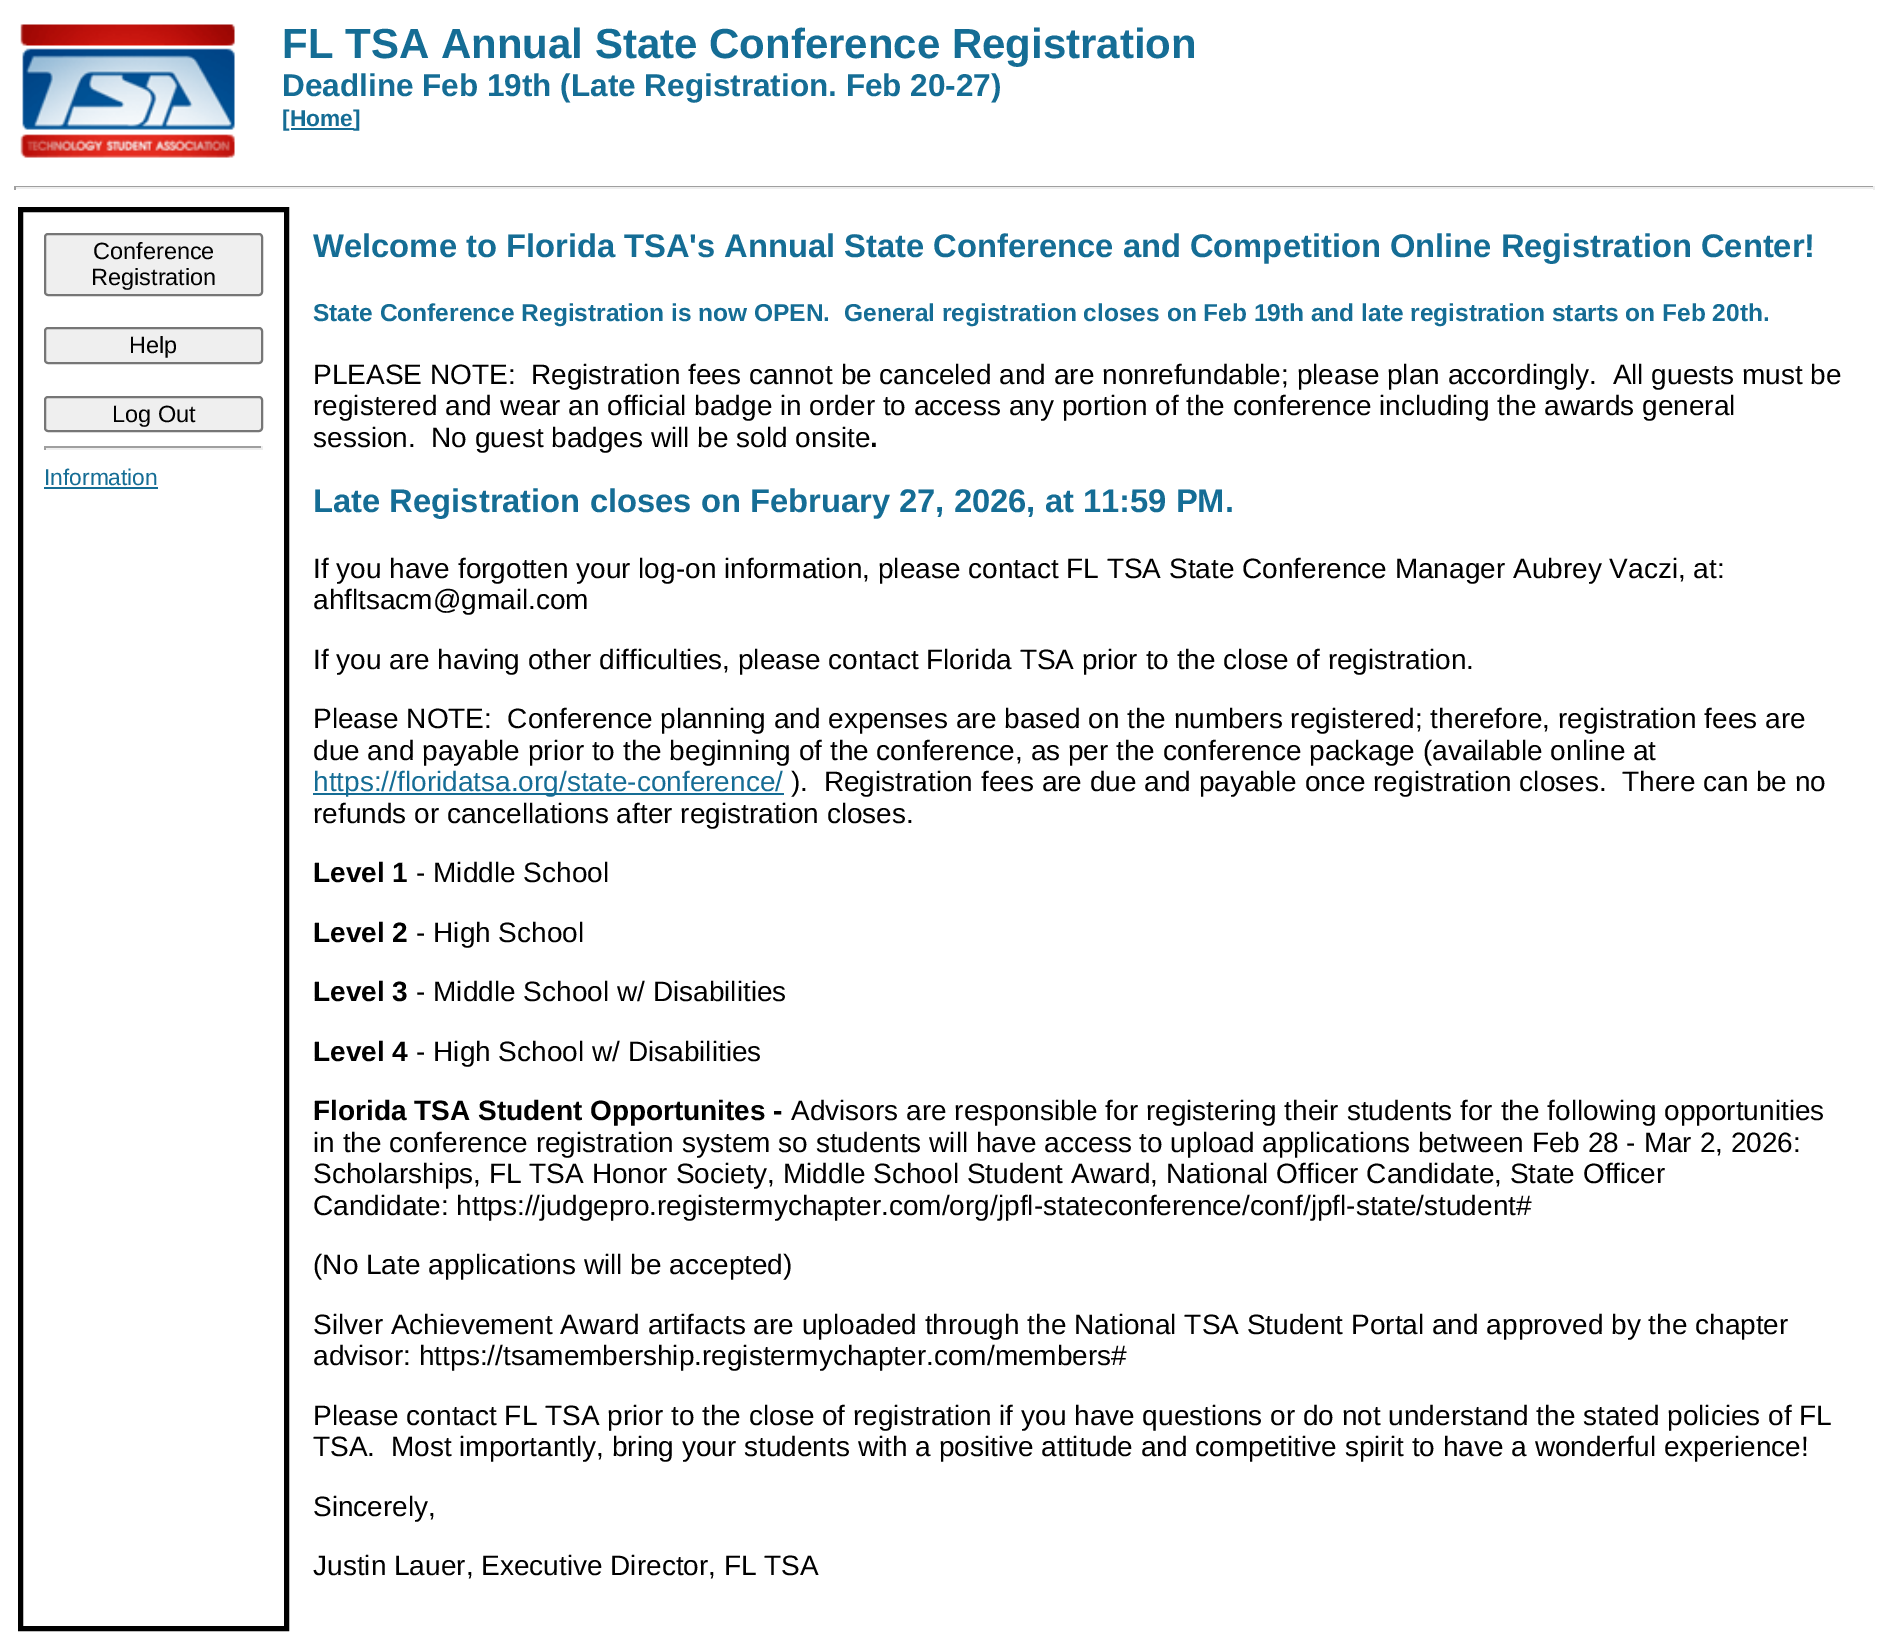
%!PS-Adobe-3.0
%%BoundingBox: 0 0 1888 1633
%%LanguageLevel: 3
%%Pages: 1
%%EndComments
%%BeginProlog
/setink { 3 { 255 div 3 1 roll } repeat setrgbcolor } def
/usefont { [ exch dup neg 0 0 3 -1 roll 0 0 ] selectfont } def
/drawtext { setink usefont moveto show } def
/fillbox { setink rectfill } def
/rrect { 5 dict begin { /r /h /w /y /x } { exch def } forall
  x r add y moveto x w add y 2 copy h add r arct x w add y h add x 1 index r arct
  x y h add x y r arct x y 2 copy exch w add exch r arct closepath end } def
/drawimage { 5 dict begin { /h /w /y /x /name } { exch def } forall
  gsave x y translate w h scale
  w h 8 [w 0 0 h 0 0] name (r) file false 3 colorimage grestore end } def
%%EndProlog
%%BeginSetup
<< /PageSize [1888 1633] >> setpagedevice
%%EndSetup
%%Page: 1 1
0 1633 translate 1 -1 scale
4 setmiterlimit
0 0 1888 1633 255 255 255 fillbox
(assets/img1.rgb) 20 24 215 134 drawimage
(FL TSA Annual State Conference Registration) 282 58 /LiberationSans-Bold 42 21 109 149 drawtext
(Deadline Feb 19th \(Late Registration. Feb 20-27\)) 282 96 /LiberationSans-Bold 31.5 21 109 149 drawtext
([Home) 282 126 /LiberationSans-Bold 22.75 21 109 149 drawtext
291 128 63 2 21 109 149 fillbox
(]) 353 126 /LiberationSans-Bold 22.75 21 109 149 drawtext
14 186 1860 1 159 159 159 fillbox
1873 186 2 4 238 238 238 fillbox
14 187 1860 2 238 238 238 fillbox
14 186 2 4 159 159 159 fillbox
0 0 0 setink
5 setlinewidth
20.5 209.5 266 1419 rectstroke
239 239 239 setink
45 234 217 61 3 rrect gsave fill grestore
118 118 118 setink
2 setlinewidth
stroke
(Conference) 93 259 /LiberationSans-Regular 23.5 0 0 0 drawtext
(Registration) 91 285 /LiberationSans-Regular 23.5 0 0 0 drawtext
239 239 239 setink
45 328 217 35 3 rrect gsave fill grestore
118 118 118 setink
stroke
(Help) 129 353 /LiberationSans-Regular 23.5 0 0 0 drawtext
239 239 239 setink
45 397 217 34 3 rrect gsave fill grestore
118 118 118 setink
stroke
(Log Out) 112 422 /LiberationSans-Regular 23.5 0 0 0 drawtext
44 446 219 2 159 159 159 fillbox
261 446 2 4 238 238 238 fillbox
44 448 219 2 238 238 238 fillbox
44 446 2 4 159 159 159 fillbox
(Information) 44 485 /LiberationSans-Regular 22.75 21 109 149 drawtext
44 487 114 2 21 109 149 fillbox
/LiberationSans-Bold 32.75 usefont
313 257 moveto -0.1 0 32 (Welcome to Florida TSA's Annual State Conference and Competition Online Registration Center!) widthshow
(State Conference Registration is now OPEN.  General registration closes on Feb 19th and late registration starts on Feb 20th.) 313 321 /LiberationSans-Bold 24.5 21 109 149 drawtext
(PLEASE NOTE:  Registration fees cannot be canceled and are nonrefundable; please plan accordingly.  All guests must be) 313 384 /LiberationSans-Regular 28 0 0 0 drawtext
(registered and wear an official badge in order to access any portion of the conference including the awards general) 313 415 /LiberationSans-Regular 28 0 0 0 drawtext
(session.  No guest badges will be sold onsite) 313 447 /LiberationSans-Regular 28 0 0 0 drawtext
(.) 870 447 /LiberationSans-Bold 28 0 0 0 drawtext
(Late Registration closes on February 27, 2026, at 11:59 PM.) 313 512 /LiberationSans-Bold 32.75 21 109 149 drawtext
(If you have forgotten your log-on information, please contact FL TSA State Conference Manager Aubrey Vaczi, at:) 313 578 /LiberationSans-Regular 28 0 0 0 drawtext
(ahfltsacm@gmail.com) 313 609 /LiberationSans-Regular 28 0 0 0 drawtext
(If you are having other difficulties, please contact Florida TSA prior to the close of registration.) 313 669 /LiberationSans-Regular 28 0 0 0 drawtext
(Please NOTE:  Conference planning and expenses are based on the numbers registered; therefore, registration fees are) 313 728 /LiberationSans-Regular 28 0 0 0 drawtext
(due and payable prior to the beginning of the conference, as per the conference package \(available online at) 313 760 /LiberationSans-Regular 28 0 0 0 drawtext
313 793 471 2 21 109 149 fillbox
(https://floridatsa.org/state-conference/) 313 791 /LiberationSans-Regular 28 21 109 149 drawtext
(\).  Registration fees are due and payable once registration closes.  There can be no) 791 791 /LiberationSans-Regular 28 0 0 0 drawtext
(refunds or cancellations after registration closes.) 313 823 /LiberationSans-Regular 28 0 0 0 drawtext
(Level 1) 313 882 /LiberationSans-Bold 28 0 0 0 drawtext
(- Middle School) 416 882 /LiberationSans-Regular 28 0 0 0 drawtext
(Level 2) 313 942 /LiberationSans-Bold 28 0 0 0 drawtext
(- High School) 416 942 /LiberationSans-Regular 28 0 0 0 drawtext
(Level 3) 313 1001 /LiberationSans-Bold 28 0 0 0 drawtext
(- Middle School w/ Disabilities) 416 1001 /LiberationSans-Regular 28 0 0 0 drawtext
(Level 4) 313 1061 /LiberationSans-Bold 28 0 0 0 drawtext
(- High School w/ Disabilities) 416 1061 /LiberationSans-Regular 28 0 0 0 drawtext
(Florida TSA Student Opportunites -) 313 1120 /LiberationSans-Bold 28 0 0 0 drawtext
(Advisors are responsible for registering their students for the following opportunities) 791 1120 /LiberationSans-Regular 28 0 0 0 drawtext
(in the conference registration system so students will have access to upload applications between Feb 28 - Mar 2, 2026:) 313 1152 /LiberationSans-Regular 28 0 0 0 drawtext
(Scholarships, FL TSA Honor Society, Middle School Student Award, National Officer Candidate, State Officer) 313 1183 /LiberationSans-Regular 28 0 0 0 drawtext
(Candidate: https://judgepro.registermychapter.com/org/jpfl-stateconference/conf/jpfl-state/student#) 313 1215 /LiberationSans-Regular 28 0 0 0 drawtext
(\(No Late applications will be accepted\)) 313 1274 /LiberationSans-Regular 28 0 0 0 drawtext
(Silver Achievement Award artifacts are uploaded through the National TSA Student Portal and approved by the chapter) 313 1334 /LiberationSans-Regular 28 0 0 0 drawtext
(advisor: https://tsamembership.registermychapter.com/members#) 313 1365 /LiberationSans-Regular 28 0 0 0 drawtext
(Please contact FL TSA prior to the close of registration if you have questions or do not understand the stated policies of FL) 313 1425 /LiberationSans-Regular 28 0 0 0 drawtext
(TSA.  Most importantly, bring your students with a positive attitude and competitive spirit to have a wonderful experience!) 313 1456 /LiberationSans-Regular 28 0 0 0 drawtext
(Sincerely,) 313 1516 /LiberationSans-Regular 28 0 0 0 drawtext
(Justin Lauer, Executive Director, FL TSA) 313 1575 /LiberationSans-Regular 28 0 0 0 drawtext
showpage
%%EOF
